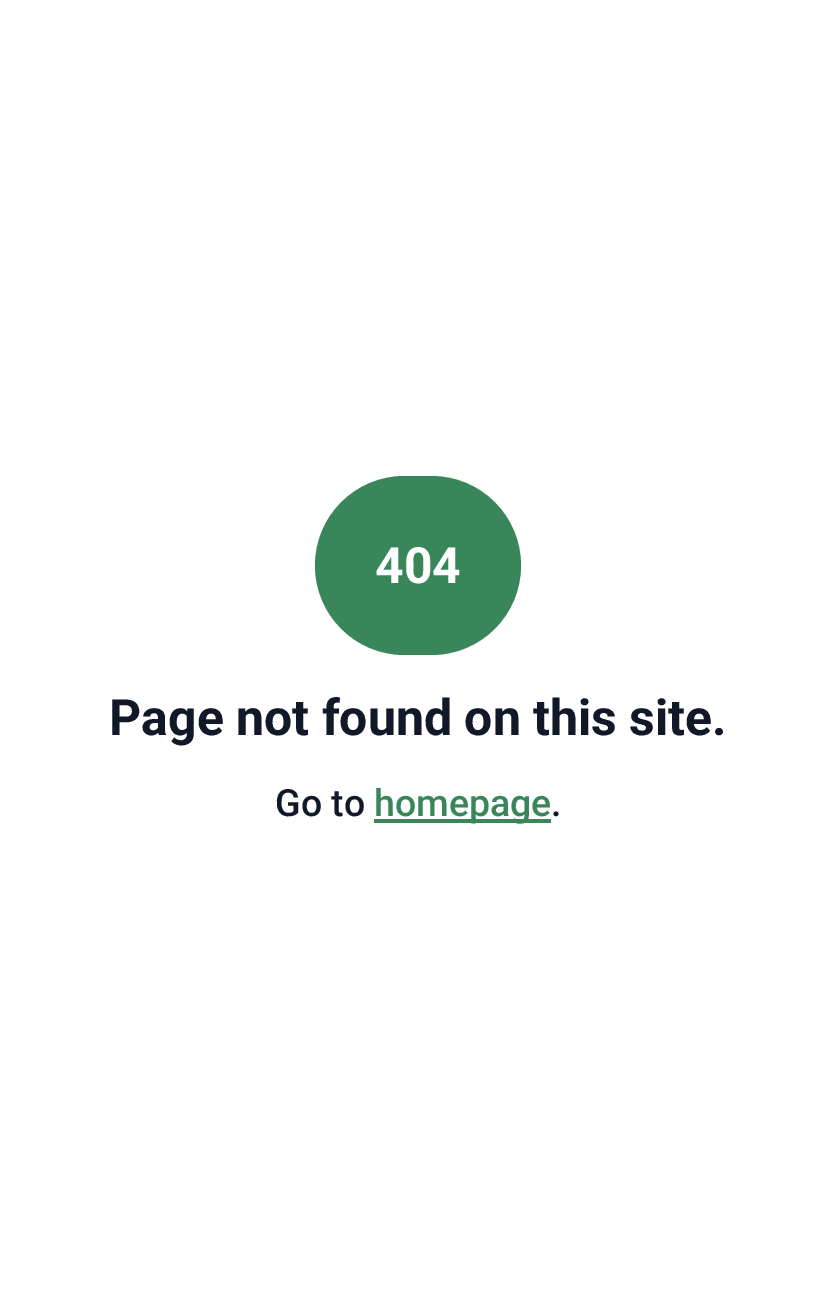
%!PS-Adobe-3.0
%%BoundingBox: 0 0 836 1301
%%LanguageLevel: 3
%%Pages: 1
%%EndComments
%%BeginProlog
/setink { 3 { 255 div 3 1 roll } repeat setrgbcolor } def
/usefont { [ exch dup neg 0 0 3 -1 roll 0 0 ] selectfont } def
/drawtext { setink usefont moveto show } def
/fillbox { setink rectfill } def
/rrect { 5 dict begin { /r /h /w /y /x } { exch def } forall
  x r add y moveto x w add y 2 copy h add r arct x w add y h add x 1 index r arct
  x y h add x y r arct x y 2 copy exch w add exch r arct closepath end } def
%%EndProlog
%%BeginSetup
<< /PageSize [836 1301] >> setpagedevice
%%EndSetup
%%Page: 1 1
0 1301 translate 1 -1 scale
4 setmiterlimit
0 0 836 1301 255 255 255 fillbox
56 134 89 setink
315 476 206 179 89.5 rrect fill
(404) 375 583 /Roboto-Bold 50 255 255 255 drawtext
(Page not found on this site.) 109 735 /Roboto-Bold 50 17 24 39 drawtext
(Go to) 275 816 /Roboto-Medium 37.5 17 24 39 drawtext
374 819 177 4 56 134 89 fillbox
(homepage) 374 816 /Roboto-Medium 37.5 56 134 89 drawtext
(.) 551 816 /Roboto-Medium 37.5 17 24 39 drawtext
showpage
%%EOF
